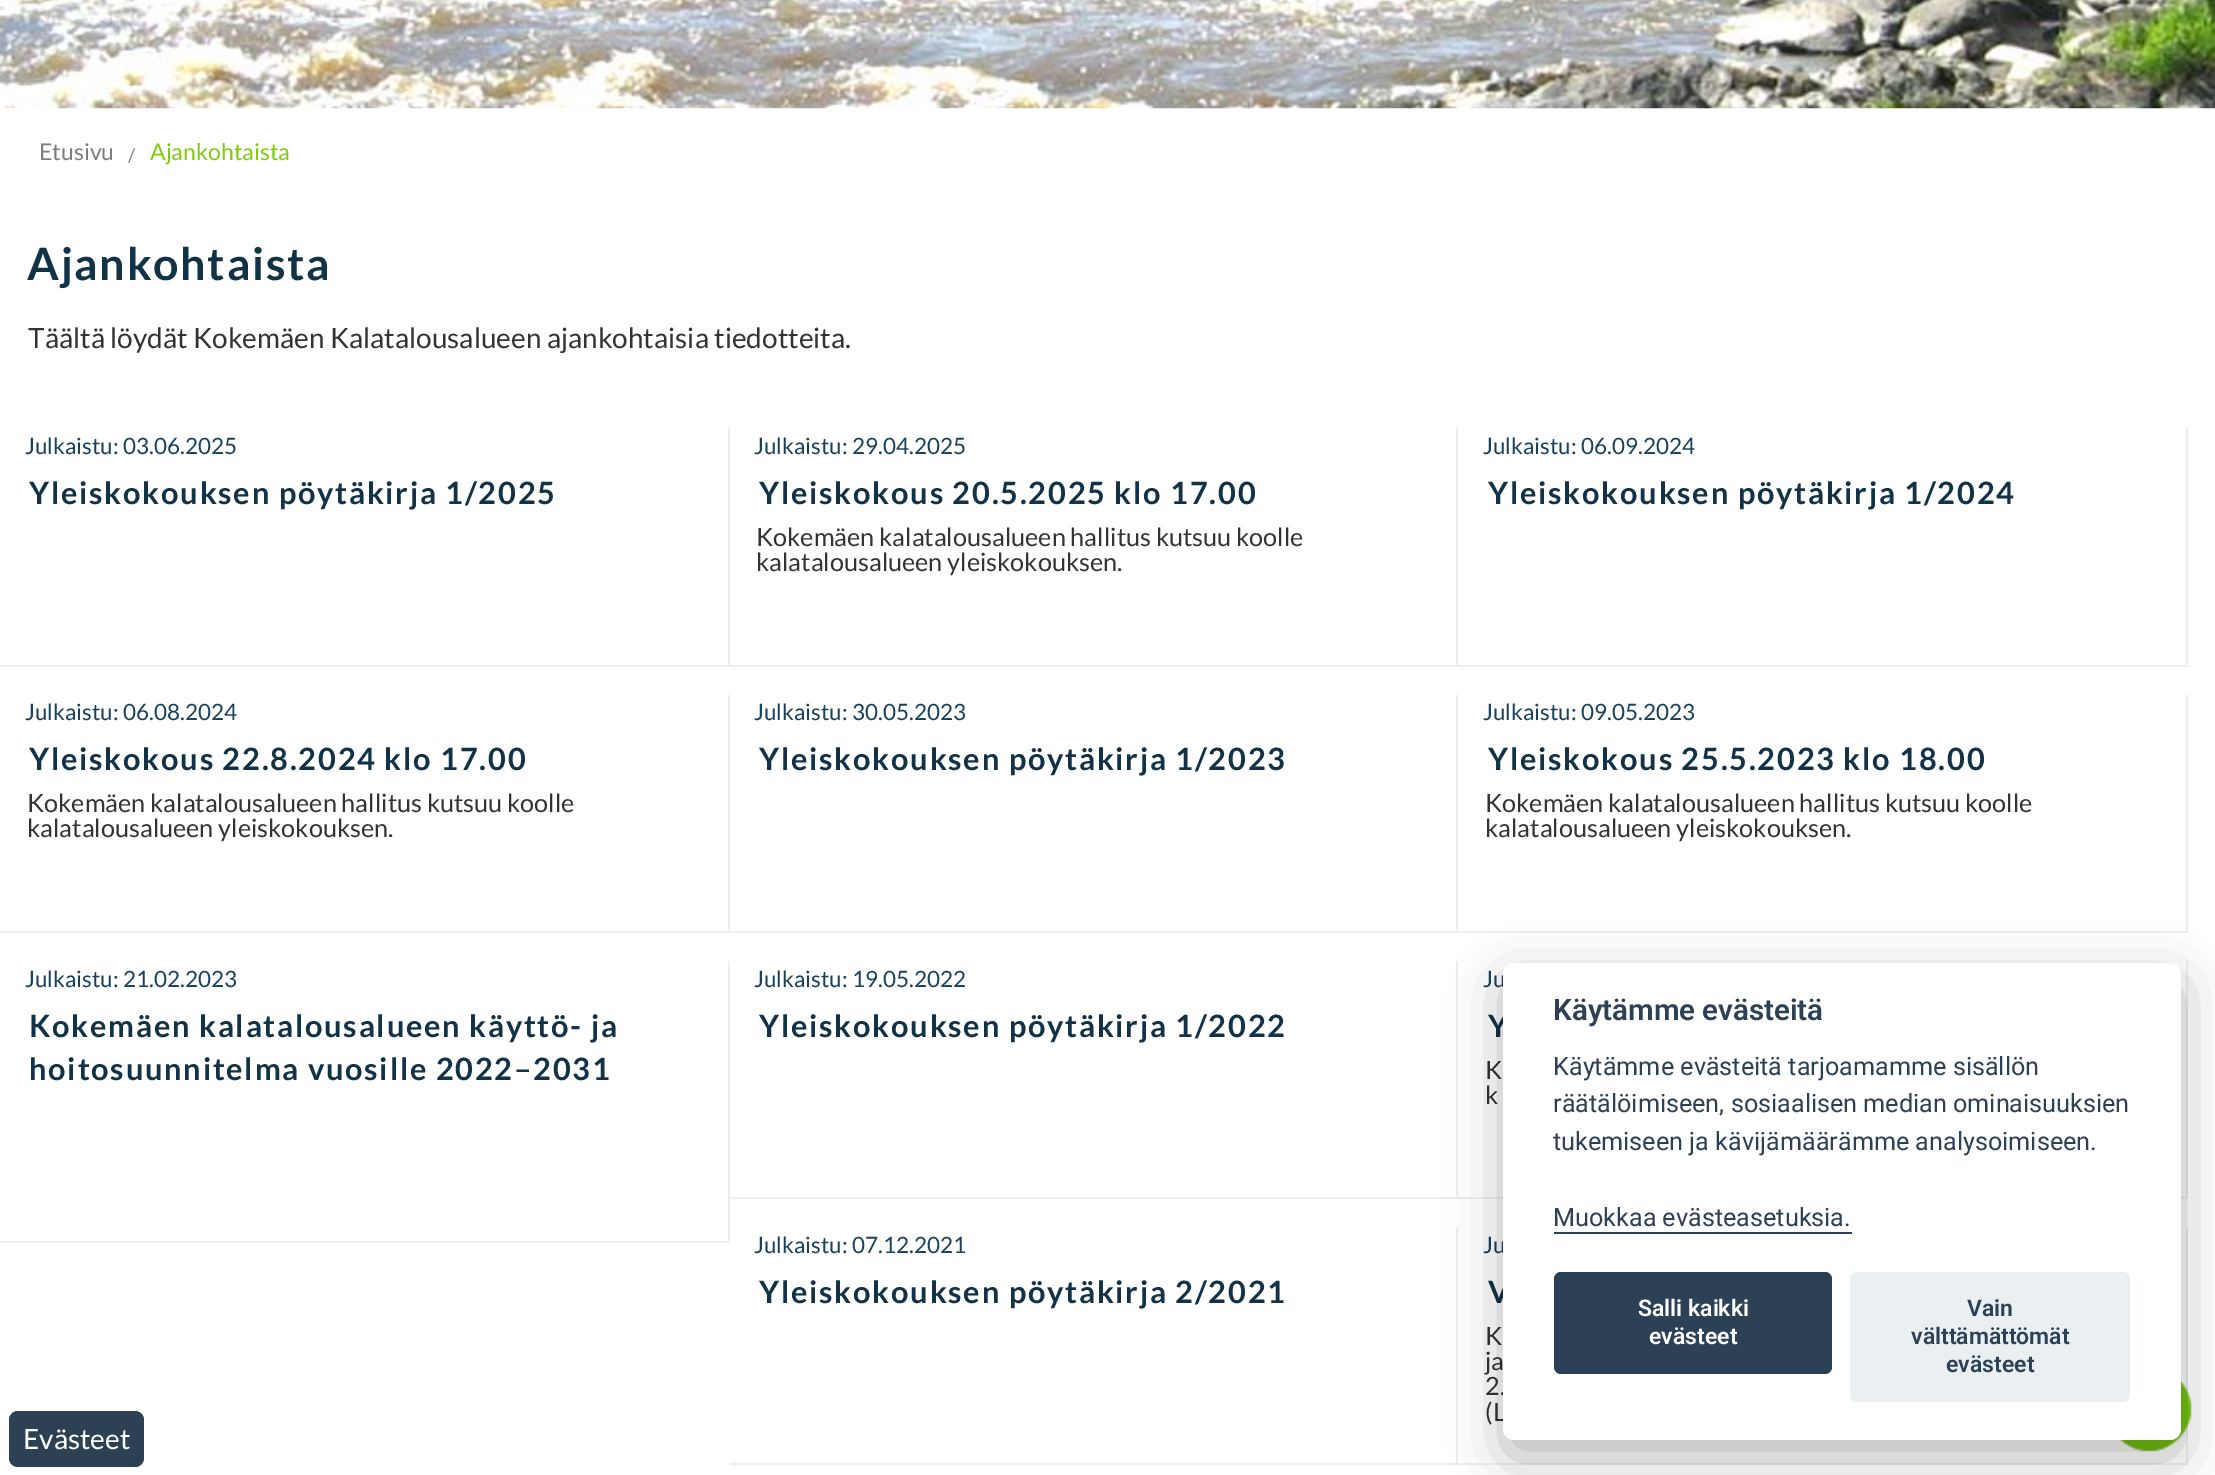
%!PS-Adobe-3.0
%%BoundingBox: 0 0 2215 1475
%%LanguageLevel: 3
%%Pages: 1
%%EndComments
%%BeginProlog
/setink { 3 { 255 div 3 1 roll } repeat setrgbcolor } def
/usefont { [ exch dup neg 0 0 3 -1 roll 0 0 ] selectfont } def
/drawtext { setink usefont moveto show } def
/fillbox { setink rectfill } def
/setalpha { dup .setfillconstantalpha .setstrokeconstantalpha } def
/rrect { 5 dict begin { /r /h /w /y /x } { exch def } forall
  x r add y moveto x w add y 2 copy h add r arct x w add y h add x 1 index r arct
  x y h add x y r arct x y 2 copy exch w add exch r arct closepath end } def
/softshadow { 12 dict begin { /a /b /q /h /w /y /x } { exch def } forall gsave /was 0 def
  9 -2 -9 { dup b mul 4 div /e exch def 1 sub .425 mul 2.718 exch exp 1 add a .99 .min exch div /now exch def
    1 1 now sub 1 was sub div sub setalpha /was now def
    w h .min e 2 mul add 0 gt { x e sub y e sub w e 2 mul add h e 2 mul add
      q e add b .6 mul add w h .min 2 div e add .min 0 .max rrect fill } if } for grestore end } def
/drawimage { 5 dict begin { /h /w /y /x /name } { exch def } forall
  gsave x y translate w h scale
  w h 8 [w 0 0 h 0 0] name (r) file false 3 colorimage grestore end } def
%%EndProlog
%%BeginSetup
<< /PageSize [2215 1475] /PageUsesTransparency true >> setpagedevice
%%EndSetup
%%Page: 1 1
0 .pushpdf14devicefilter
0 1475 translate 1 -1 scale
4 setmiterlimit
0 0 2215 1475 255 255 255 fillbox
(assets/img1.rgb) 0 0 2215 109 drawimage
(Etusivu) 39 160 /Lato-Regular 23 125 124 125 drawtext
(/) 128 162 /Lato-Regular 19 125 124 125 drawtext
(Ajankohtaista) 150 160 /Lato-Regular 23 126 204 12 drawtext
/Lato-Bold 44.75 usefont
18 50 71 setink
27 280 moveto 1.75 0 (Ajankohtaista) ashow
(Täältä löydät Kokemäen Kalatalousalueen ajankohtaisia tiedotteita.) 28 348 /Lato-Regular 28 51 51 51 drawtext
728 427 2 240 238 238 238 fillbox
0 665 730 2 238 238 238 fillbox
(Julkaistu: 03.06.2025) 25 454 /Lato-Regular 22.5 23 65 92 drawtext
/Lato-Bold 30.75 usefont
18 50 71 setink
29 504 moveto 1.75 0 (Yleiskokouksen pöytäkirja 1/2025) ashow
1456 427 2 240 238 238 238 fillbox
730 665 728 2 238 238 238 fillbox
(Julkaistu: 29.04.2025) 754 454 /Lato-Regular 22.5 23 65 92 drawtext
/Lato-Bold 30.75 usefont
18 50 71 setink
759 504 moveto 1.75 0 (Yleiskokous 20.5.2025 klo 17.00) ashow
(Kokemäen kalatalousalueen hallitus kutsuu koolle) 756 546 /Lato-Regular 25.2 51 51 51 drawtext
(kalatalousalueen yleiskokouksen.) 756 571 /Lato-Regular 25.2 51 51 51 drawtext
2186 427 2 240 238 238 238 fillbox
1458 665 730 2 238 238 238 fillbox
(Julkaistu: 06.09.2024) 1483 454 /Lato-Regular 22.5 23 65 92 drawtext
/Lato-Bold 30.75 usefont
18 50 71 setink
1488 504 moveto 1.75 0 (Yleiskokouksen pöytäkirja 1/2024) ashow
728 695 2 238 238 238 238 fillbox
0 931 730 2 238 238 238 fillbox
(Julkaistu: 06.08.2024) 25 720 /Lato-Regular 22.5 23 65 92 drawtext
/Lato-Bold 30.75 usefont
18 50 71 setink
29 770 moveto 1.75 0 (Yleiskokous 22.8.2024 klo 17.00) ashow
(Kokemäen kalatalousalueen hallitus kutsuu koolle) 27 812 /Lato-Regular 25.2 51 51 51 drawtext
(kalatalousalueen yleiskokouksen.) 27 837 /Lato-Regular 25.2 51 51 51 drawtext
1456 695 2 238 238 238 238 fillbox
730 931 728 2 238 238 238 fillbox
(Julkaistu: 30.05.2023) 754 720 /Lato-Regular 22.5 23 65 92 drawtext
/Lato-Bold 30.75 usefont
18 50 71 setink
759 770 moveto 1.75 0 (Yleiskokouksen pöytäkirja 1/2023) ashow
2186 695 2 238 238 238 238 fillbox
1458 931 730 2 238 238 238 fillbox
(Julkaistu: 09.05.2023) 1483 720 /Lato-Regular 22.5 23 65 92 drawtext
/Lato-Bold 30.75 usefont
18 50 71 setink
1488 770 moveto 1.75 0 (Yleiskokous 25.5.2023 klo 18.00) ashow
(Kokemäen kalatalousalueen hallitus kutsuu koolle) 1485 812 /Lato-Regular 25.2 51 51 51 drawtext
(kalatalousalueen yleiskokouksen.) 1485 837 /Lato-Regular 25.2 51 51 51 drawtext
728 961 2 282 238 238 238 fillbox
0 1241 730 2 238 238 238 fillbox
(Julkaistu: 21.02.2023) 25 987 /Lato-Regular 22.5 23 65 92 drawtext
/Lato-Bold 30.75 usefont
18 50 71 setink
29 1037 moveto 1.75 0 (Kokemäen kalatalousalueen käyttö- ja) ashow
29 1080 moveto 1.75 0 (hoitosuunnitelma vuosille 2022–2031) ashow
1456 961 2 238 238 238 238 fillbox
730 1197 728 2 238 238 238 fillbox
(Julkaistu: 19.05.2022) 754 987 /Lato-Regular 22.5 23 65 92 drawtext
/Lato-Bold 30.75 usefont
18 50 71 setink
759 1037 moveto 1.75 0 (Yleiskokouksen pöytäkirja 1/2022) ashow
2186 961 2 238 238 238 238 fillbox
1458 1197 730 2 238 238 238 fillbox
(Ju) 1483 987 /Lato-Regular 22.5 23 65 92 drawtext
/Lato-Bold 30.75 usefont
18 50 71 setink
1488 1037 moveto 1.75 0 (Y) ashow
(K) 1485 1079 /Lato-Regular 25.2 51 51 51 drawtext
(k) 1485 1104 /Lato-Regular 25.2 51 51 51 drawtext
1456 1227 2 238 238 238 238 fillbox
730 1463 728 2 238 238 238 fillbox
(Julkaistu: 07.12.2021) 754 1253 /Lato-Regular 22.5 23 65 92 drawtext
/Lato-Bold 30.75 usefont
18 50 71 setink
759 1303 moveto 1.75 0 (Yleiskokouksen pöytäkirja 2/2021) ashow
2186 1227 2 238 238 238 238 fillbox
1458 1463 730 2 238 238 238 fillbox
(Ju) 1483 1253 /Lato-Regular 22.5 23 65 92 drawtext
/Lato-Bold 30.75 usefont
18 50 71 setink
1488 1303 moveto 1.75 0 (V) ashow
(K) 1485 1345 /Lato-Regular 25.2 51 51 51 drawtext
(ja) 1485 1370 /Lato-Regular 25.2 51 51 51 drawtext
(2.) 1485 1395 /Lato-Regular 25.2 51 51 51 drawtext
(\(L) 1485 1421 /Lato-Regular 25.2 51 51 51 drawtext
(assets/img2.rgb) 2119 1380 73 72 drawimage
2 2 3 setink
1503 980 678 478 11 26 0.28 softshadow
255 255 255 setink
1503 963 678 477 11 rrect fill
(Käytämme evästeitä) 1553 1020 /Roboto-SemiBold 29.5 45 65 86 drawtext
(Käytämme evästeitä tarjoamamme sisällön) 1553 1075 /Roboto-Regular 25.2 45 65 86 drawtext
(räätälöimiseen, sosiaalisen median ominaisuuksien) 1553 1112 /Roboto-Regular 25.2 45 65 86 drawtext
(tukemiseen ja kävijämäärämme analysoimiseen.) 1553 1150 /Roboto-Regular 25.2 45 65 86 drawtext
(Muokkaa evästeasetuksia.) 1553 1226 /Roboto-Regular 25.2 45 65 86 drawtext
1554 1232 298 2 45 65 86 fillbox
1554 1272 278 102 7 rrect fill
(Salli kaikki) 1638 1316 /Roboto-SemiBold 23 255 255 255 drawtext
(evästeet) 1649 1344 /Roboto-SemiBold 23 255 255 255 drawtext
234 239 242 setink
1850 1272 280 130 7 rrect fill
(Vain) 1967 1316 /Roboto-SemiBold 23 45 65 86 drawtext
(välttämättömät) 1911 1344 /Roboto-SemiBold 23 45 65 86 drawtext
(evästeet) 1946 1372 /Roboto-SemiBold 23 45 65 86 drawtext
45 65 85 setink
9 1411 135 56 9 rrect fill
(Evästeet) 23 1449 /Lato-Regular 28 255 255 255 drawtext
.poppdf14devicefilter showpage
%%EOF
